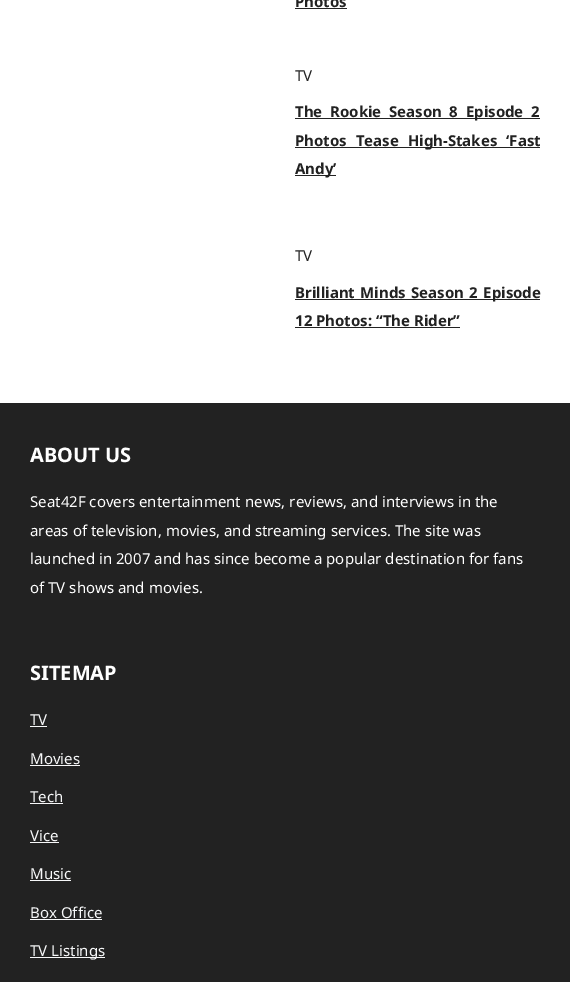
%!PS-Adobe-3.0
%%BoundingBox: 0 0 570 982
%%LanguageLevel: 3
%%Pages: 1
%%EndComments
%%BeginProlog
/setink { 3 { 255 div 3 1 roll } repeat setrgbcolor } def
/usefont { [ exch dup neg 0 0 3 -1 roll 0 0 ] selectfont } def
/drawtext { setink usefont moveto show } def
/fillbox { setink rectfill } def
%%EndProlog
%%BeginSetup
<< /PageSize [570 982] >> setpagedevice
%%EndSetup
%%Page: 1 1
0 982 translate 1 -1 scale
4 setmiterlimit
0 0 570 982 255 255 255 fillbox
(Photos) 295 7 /NotoSans-Bold 15 34 34 34 drawtext
295 8 52 1 34 34 34 fillbox
(TV) 295 81 /NotoSans-Regular 15 34 34 34 drawtext
295 118 245 1 34 34 34 fillbox
/NotoSans-Bold 15 usefont
295 117 moveto 3.75 0 32 (The Rookie Season 8 Episode 2) widthshow
295 147 245 1 34 34 34 fillbox
295 146 moveto 5 0 32 (Photos Tease High-Stakes ‘Fast) widthshow
295 175 41 1 34 34 34 fillbox
(Andy’) 295 174 /NotoSans-Bold 15 34 34 34 drawtext
(TV) 295 261 /NotoSans-Regular 15 34 34 34 drawtext
295 299 245 1 34 34 34 fillbox
/NotoSans-Bold 15 usefont
295 298 moveto 1.5 0 32 (Brilliant Minds Season 2 Episode) widthshow
(12 Photos: “The Rider”) 295 326 /NotoSans-Bold 15 34 34 34 drawtext
295 327 165 1 34 34 34 fillbox
0 403 570 579 34 34 34 fillbox
(ABOUT US) 30 462 /NotoSans-Bold 20 255 255 255 drawtext
(Seat42F covers entertainment news, reviews, and interviews in the) 30 507 /NotoSans-Regular 15 255 255 255 drawtext
(areas of television, movies, and streaming services. The site was) 30 536 /NotoSans-Regular 15 255 255 255 drawtext
(launched in 2007 and has since become a popular destination for fans) 30 564 /NotoSans-Regular 15 255 255 255 drawtext
(of TV shows and movies.) 30 593 /NotoSans-Regular 15 255 255 255 drawtext
(SITEMAP) 30 680 /NotoSans-Bold 20 255 255 255 drawtext
(TV) 30 725 /NotoSans-Regular 15 247 248 249 drawtext
30 726 17 1 247 248 249 fillbox
(Movies) 30 764 /NotoSans-Regular 15 247 248 249 drawtext
30 765 50 1 247 248 249 fillbox
(Tech) 30 802 /NotoSans-Regular 15 247 248 249 drawtext
30 803 33 1 247 248 249 fillbox
(Vice) 30 841 /NotoSans-Regular 15 247 248 249 drawtext
30 842 29 1 247 248 249 fillbox
(Music) 30 879 /NotoSans-Regular 15 247 248 249 drawtext
30 880 41 1 247 248 249 fillbox
(Box Office) 30 918 /NotoSans-Regular 15 247 248 249 drawtext
30 919 72 1 247 248 249 fillbox
30 957 75 1 247 248 249 fillbox
(TV Listings) 30 956 /NotoSans-Regular 15 247 248 249 drawtext
showpage
%%EOF
